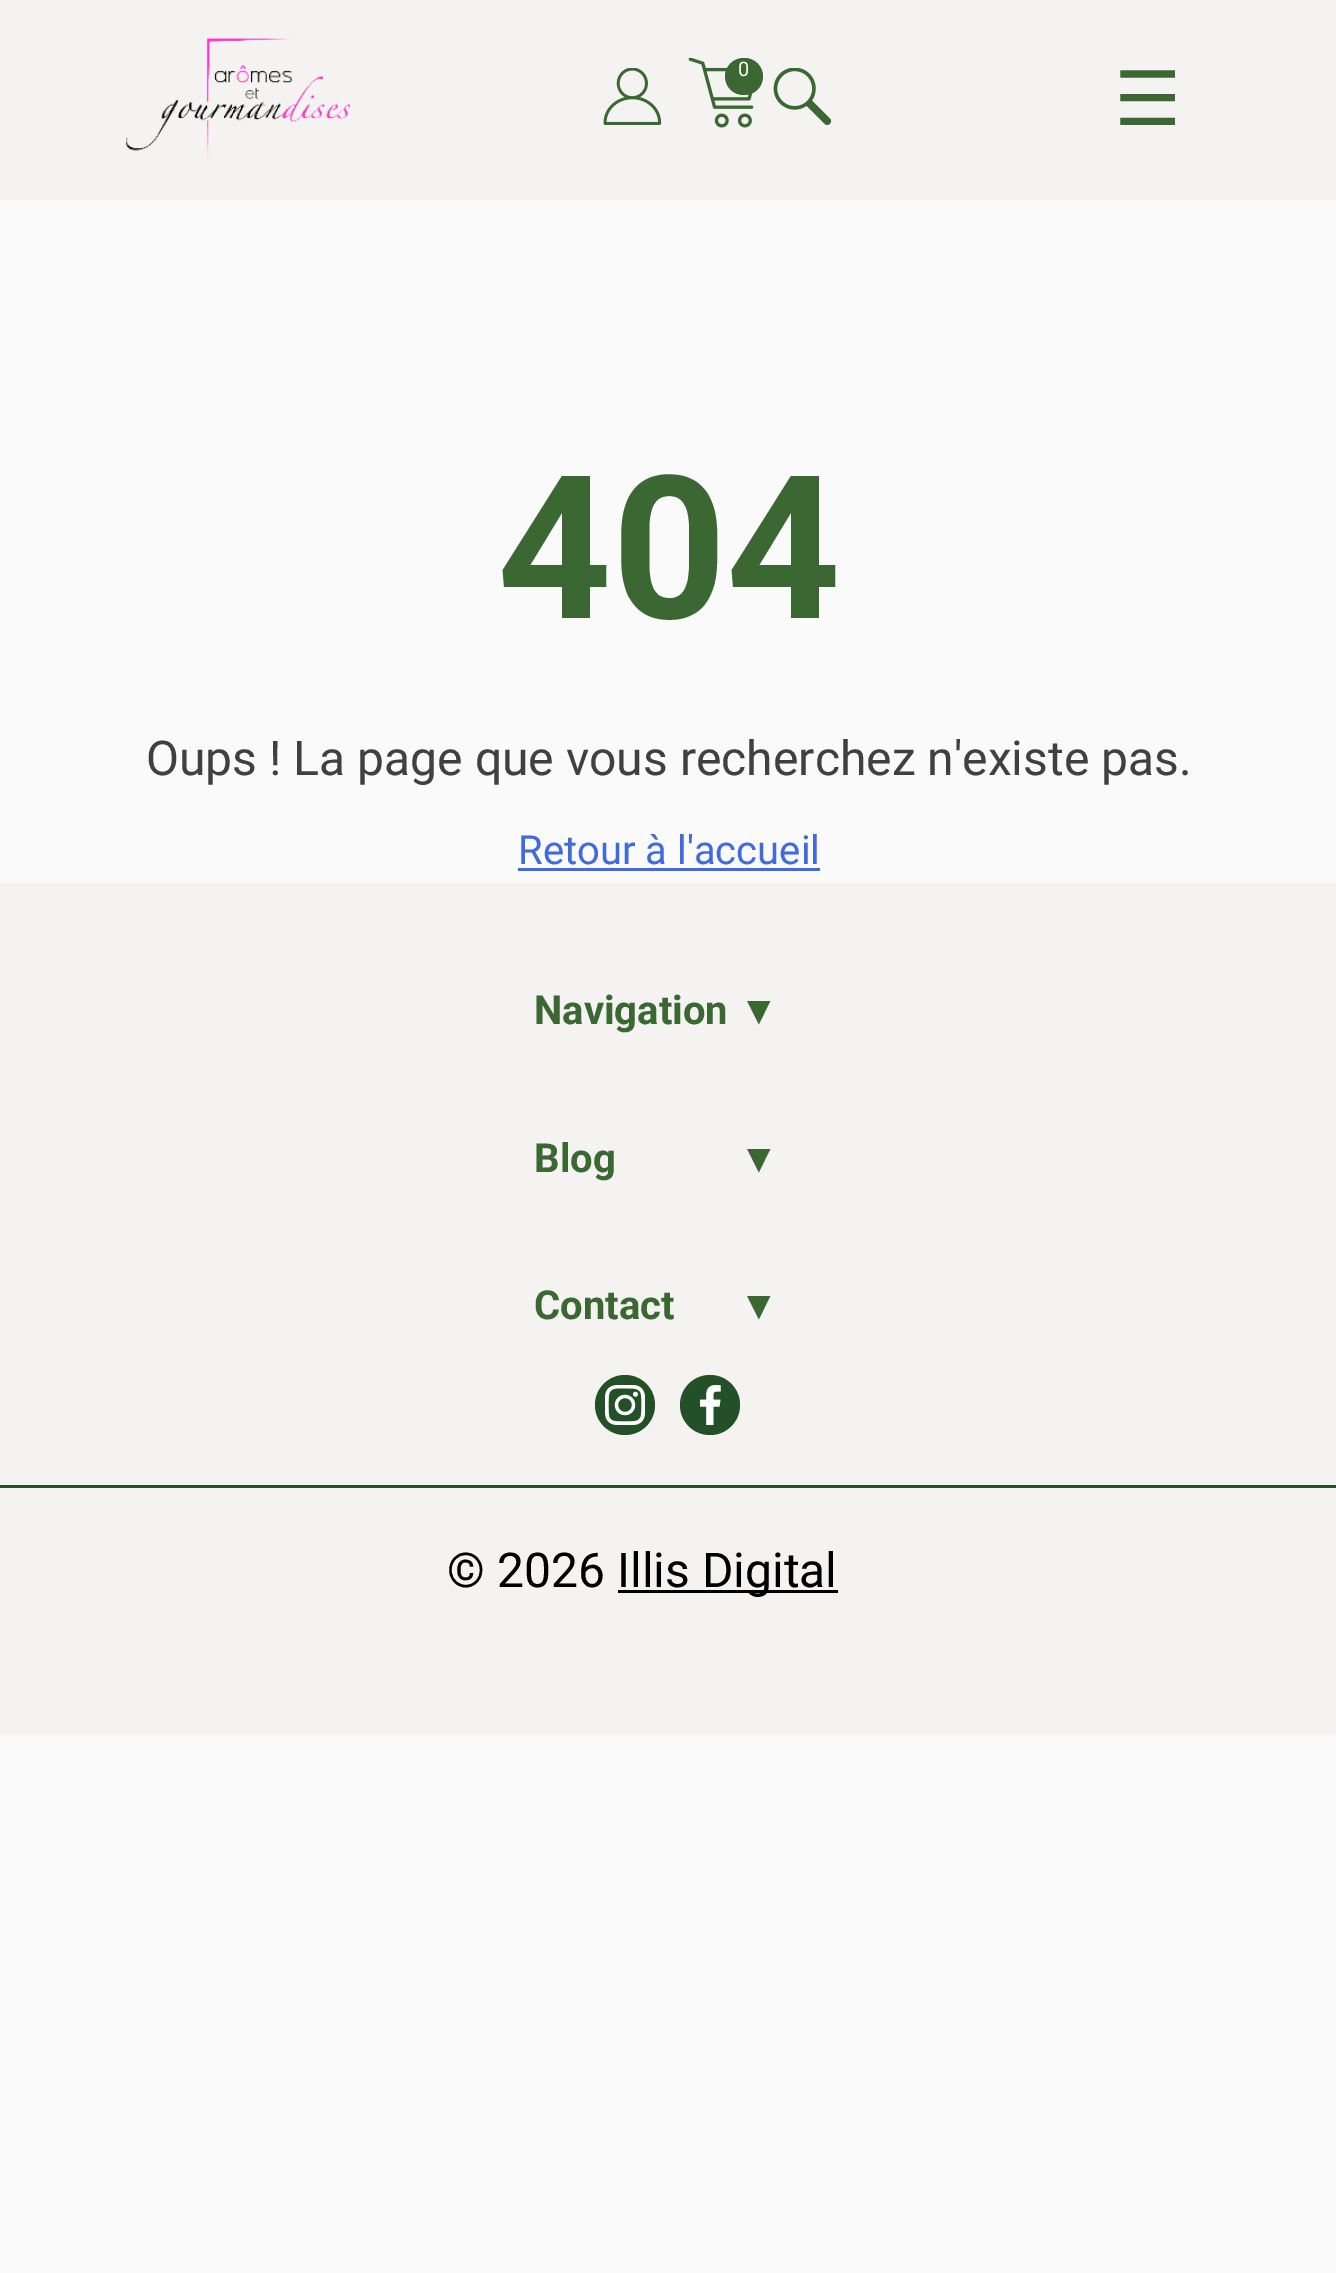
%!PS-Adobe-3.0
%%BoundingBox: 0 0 1336 2273
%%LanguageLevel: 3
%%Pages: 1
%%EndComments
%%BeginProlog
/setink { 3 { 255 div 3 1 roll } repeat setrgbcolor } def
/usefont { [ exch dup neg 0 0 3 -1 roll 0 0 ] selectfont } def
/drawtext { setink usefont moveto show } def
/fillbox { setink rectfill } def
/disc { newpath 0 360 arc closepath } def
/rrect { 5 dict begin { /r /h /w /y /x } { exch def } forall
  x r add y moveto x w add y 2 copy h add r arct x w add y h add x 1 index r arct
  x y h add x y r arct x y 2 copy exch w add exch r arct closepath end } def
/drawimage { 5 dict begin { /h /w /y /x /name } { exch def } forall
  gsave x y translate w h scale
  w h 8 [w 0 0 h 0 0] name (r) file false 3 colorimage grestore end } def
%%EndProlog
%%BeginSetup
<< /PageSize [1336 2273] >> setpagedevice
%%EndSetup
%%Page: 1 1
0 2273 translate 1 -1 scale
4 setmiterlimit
0 0 1336 2273 250 250 250 fillbox
0 0 1336 200 244 243 241 fillbox
(assets/img1.rgb) 126 38 224 122 drawimage
(assets/img2.rgb) 603 68 59 57 drawimage
(assets/img3.rgb) 688 58 66 70 drawimage
59 103 51 setink
725 58 38 37 18.5 rrect fill
(0) 738 76 /Roboto-Regular 20 255 255 255 drawtext
(assets/img4.rgb) 773 68 59 57 drawimage
(☰) 1114 125 /DejaVuSans-Regular 75 59 103 51 drawtext
(404) 497 618 /Roboto-Bold 200 59 103 51 drawtext
(Oups ! La page que vous recherchez n'existe pas.) 146 775 /Roboto-Regular 48 64 64 64 drawtext
(Retour à l'accueil) 518 864 /Roboto-Regular 40 65 105 225 drawtext
518 868 302 3 65 105 225 fillbox
0 883 1336 852 244 243 241 fillbox
(Navigation) 534 1024 /Roboto-Bold 40 59 103 51 drawtext
(▼) 739 1024 /LiberationSans-Bold 40 59 103 51 drawtext
(Blog) 534 1172 /Roboto-Bold 40 59 103 51 drawtext
(▼) 739 1172 /LiberationSans-Bold 40 59 103 51 drawtext
(Contact) 534 1319 /Roboto-Bold 40 59 103 51 drawtext
(▼) 739 1319 /LiberationSans-Bold 40 59 103 51 drawtext
36 80 39 setink
625 1405 30 disc fill
(assets/img5.rgb) 605 1385 40 40 drawimage
710 1405 30 disc fill
(assets/img6.rgb) 700 1385 21 40 drawimage
0 1485 1336 3 36 80 39 fillbox
(© 2026) 447 1587 /Roboto-Regular 48 0 0 0 drawtext
618 1590 220 3 0 0 0 fillbox
(Illis Digital) 617 1587 /Roboto-Regular 48 0 0 0 drawtext
showpage
%%EOF
